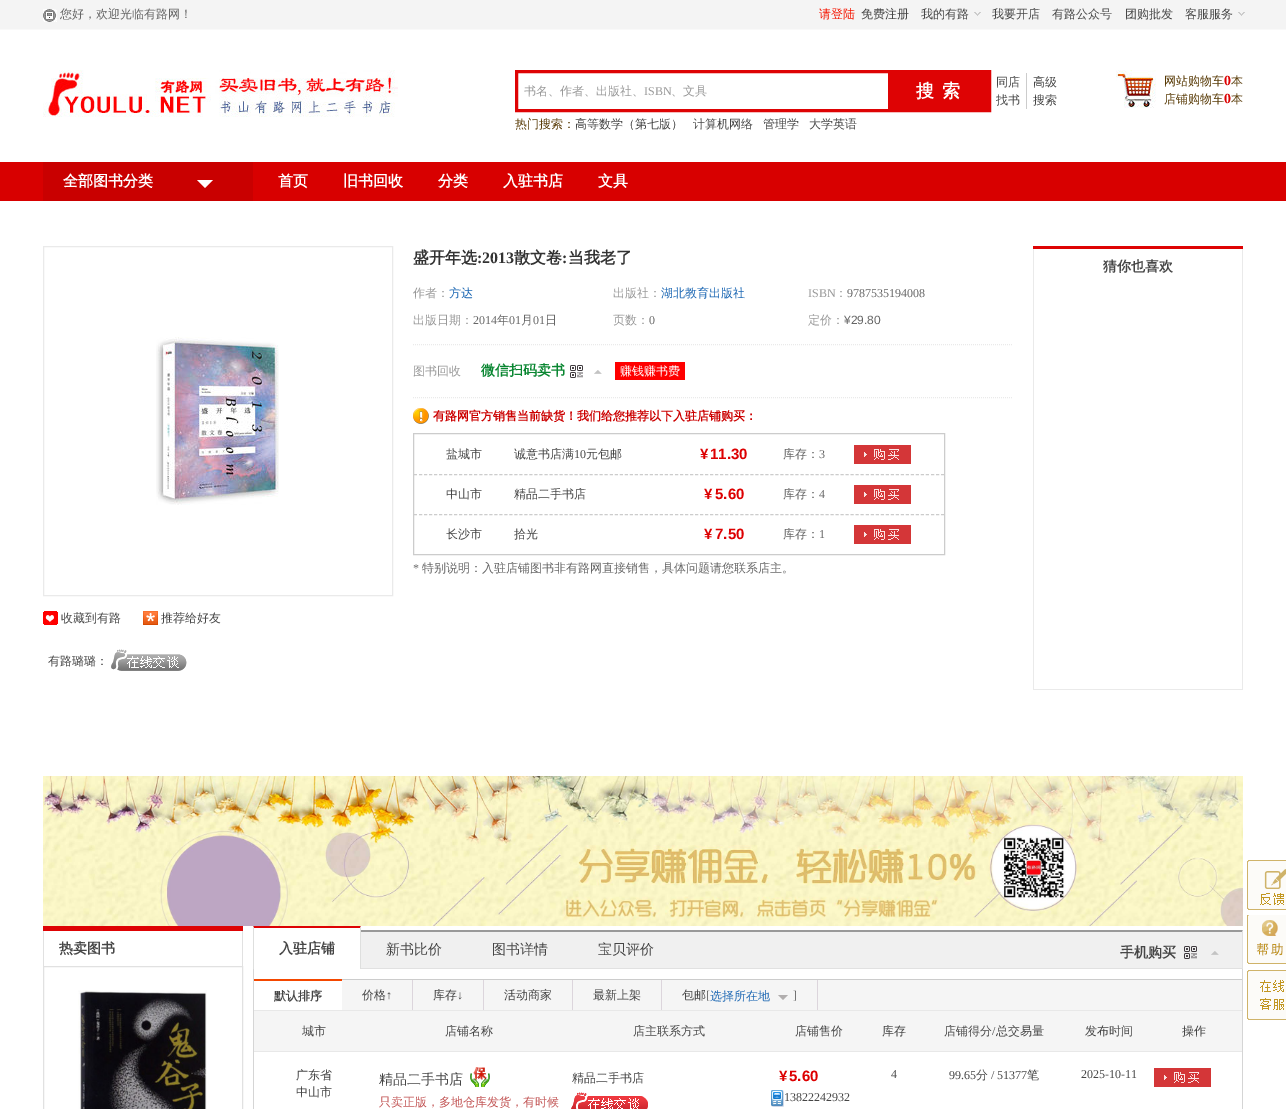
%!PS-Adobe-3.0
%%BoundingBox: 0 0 1286 1109
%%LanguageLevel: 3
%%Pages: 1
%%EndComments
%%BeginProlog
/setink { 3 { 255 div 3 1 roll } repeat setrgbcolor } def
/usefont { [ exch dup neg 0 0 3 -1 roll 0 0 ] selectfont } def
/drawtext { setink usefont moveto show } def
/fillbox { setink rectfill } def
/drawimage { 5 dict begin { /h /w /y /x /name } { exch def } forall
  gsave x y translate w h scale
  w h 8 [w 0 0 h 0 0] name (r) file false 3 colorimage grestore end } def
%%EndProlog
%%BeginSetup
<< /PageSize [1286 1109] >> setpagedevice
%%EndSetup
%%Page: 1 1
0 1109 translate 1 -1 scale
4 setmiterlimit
0 0 1286 1109 255 255 255 fillbox
0 0 1286 29 244 244 244 fillbox
0 29 1286 1 249 249 249 fillbox
(assets/img1.rgb) 43 9 14 13 drawimage
(您好，欢迎光临有路网！) 60 18 /WenQuanYiZenHei-Medium 12 102 102 102 drawtext
(请登陆) 819 18 /WenQuanYiZenHei-Medium 12 245 20 0 drawtext
(免费注册) 861 18 /WenQuanYiZenHei-Medium 12 70 70 70 drawtext
(我的有路) 921 18 /WenQuanYiZenHei-Medium 12 70 70 70 drawtext
(assets/img2.rgb) 974 12 7 4 drawimage
(我要开店) 992 18 /WenQuanYiZenHei-Medium 12 70 70 70 drawtext
(有路公众号) 1052 18 /WenQuanYiZenHei-Medium 12 70 70 70 drawtext
(团购批发) 1125 18 /WenQuanYiZenHei-Medium 12 70 70 70 drawtext
(客服服务) 1185 18 /WenQuanYiZenHei-Medium 12 70 70 70 drawtext
(assets/img2.rgb) 1238 12 7 4 drawimage
(assets/img3.rgb) 43 70 355 47 drawimage
222 3 4 setink
3 setlinewidth
516.5 71.5 473 39 rectstroke
(书名、作者、出版社、) 524 95 /WenQuanYiZenHei-Medium 12 153 153 153 drawtext
(ISBN) 644 95 /LiberationSerif-Regular 12 153 153 153 drawtext
(、文具) 671 95 /WenQuanYiZenHei-Medium 12 153 153 153 drawtext
888 73 100 36 222 3 4 fillbox
/WenQuanYiZenHei-Bold 18 usefont
255 255 255 setink
916 97 moveto 8 0 (搜索) ashow
(同店) 996 86 /WenQuanYiZenHei-Medium 12 70 70 70 drawtext
(找书) 996 104 /WenQuanYiZenHei-Medium 12 70 70 70 drawtext
1026 73 1 36 204 204 204 fillbox
(高级) 1033 86 /WenQuanYiZenHei-Medium 12 70 70 70 drawtext
(搜索) 1033 104 /WenQuanYiZenHei-Medium 12 70 70 70 drawtext
(热门搜索：) 515 128 /WenQuanYiZenHei-Medium 12 89 59 7 drawtext
(高等数学（第七版）) 575 128 /WenQuanYiZenHei-Medium 12 70 70 70 drawtext
(计算机网络) 693 128 /WenQuanYiZenHei-Medium 12 70 70 70 drawtext
(管理学) 763 128 /WenQuanYiZenHei-Medium 12 70 70 70 drawtext
(大学英语) 809 128 /WenQuanYiZenHei-Medium 12 70 70 70 drawtext
(assets/img4.rgb) 1116 70 40 38 drawimage
(网站购物车) 1164 85 /WenQuanYiZenHei-Medium 12 89 59 7 drawtext
(0) 1224 85 /LiberationSerif-Bold 14 221 0 1 drawtext
(本) 1231 85 /WenQuanYiZenHei-Medium 12 89 59 7 drawtext
(店铺购物车) 1164 103 /WenQuanYiZenHei-Medium 12 89 59 7 drawtext
(0) 1224 103 /LiberationSerif-Bold 14 221 0 1 drawtext
(本) 1231 103 /WenQuanYiZenHei-Medium 12 89 59 7 drawtext
0 162 1286 39 216 0 0 fillbox
43 162 210 39 201 0 0 fillbox
(全部图书分类) 63 186 /WenQuanYiZenHei-Bold 15 255 255 255 drawtext
197 180 moveto 213 180 lineto 205 188 lineto closepath fill
(首页) 278 186 /WenQuanYiZenHei-Bold 15 255 255 255 drawtext
(旧书回收) 343 186 /WenQuanYiZenHei-Bold 15 255 255 255 drawtext
(分类) 438 186 /WenQuanYiZenHei-Bold 15 255 255 255 drawtext
(入驻书店) 503 186 /WenQuanYiZenHei-Bold 15 255 255 255 drawtext
(文具) 598 186 /WenQuanYiZenHei-Bold 15 255 255 255 drawtext
(盛开年选) 413 263 /WenQuanYiZenHei-Bold 16 51 51 51 drawtext
(:2013) 477 263 /LiberationSerif-Bold 16 51 51 51 drawtext
(散文卷) 514 263 /WenQuanYiZenHei-Bold 16 51 51 51 drawtext
(:) 562 263 /LiberationSerif-Bold 16 51 51 51 drawtext
(当我老了) 568 263 /WenQuanYiZenHei-Bold 16 51 51 51 drawtext
234 234 234 setink
1 setlinewidth
[1 1] 0 setdash
413 344.5 moveto 1013 344.5 lineto stroke
(作者：) 413 297 /WenQuanYiZenHei-Medium 12 153 153 153 drawtext
(方达) 449 297 /WenQuanYiZenHei-Medium 12 26 102 179 drawtext
(出版社：) 613 297 /WenQuanYiZenHei-Medium 12 153 153 153 drawtext
(湖北教育出版社) 661 297 /WenQuanYiZenHei-Medium 12 26 102 179 drawtext
(ISBN) 808 297 /LiberationSerif-Regular 12 153 153 153 drawtext
(：) 835 297 /WenQuanYiZenHei-Medium 12 153 153 153 drawtext
(9787535194008) 847 297 /LiberationSerif-Regular 12 102 102 102 drawtext
(出版日期：) 413 324 /WenQuanYiZenHei-Medium 12 153 153 153 drawtext
(2014) 473 324 /LiberationSerif-Regular 12 102 102 102 drawtext
(年) 497 324 /WenQuanYiZenHei-Medium 12 102 102 102 drawtext
(01) 509 324 /LiberationSerif-Regular 12 102 102 102 drawtext
(月) 521 324 /WenQuanYiZenHei-Medium 12 102 102 102 drawtext
(01) 533 324 /LiberationSerif-Regular 12 102 102 102 drawtext
(日) 545 324 /WenQuanYiZenHei-Medium 12 102 102 102 drawtext
(页数：) 613 324 /WenQuanYiZenHei-Medium 12 153 153 153 drawtext
(0) 649 324 /LiberationSerif-Regular 12 102 102 102 drawtext
(定价：) 808 324 /WenQuanYiZenHei-Medium 12 153 153 153 drawtext
(¥29.80) 844 324 /LiberationSans-Regular 12 102 102 102 drawtext
234 234 234 setink
413 397.5 moveto 1013 397.5 lineto stroke
(图书回收) 413 375 /WenQuanYiZenHei-Medium 12 153 153 153 drawtext
(微信扫码卖书) 481 375 /WenQuanYiZenHei-Bold 14 9 134 49 drawtext
(assets/img5.rgb) 570 365 13 13 drawimage
(assets/img6.rgb) 594 370 8 4 drawimage
615 362 70 18 255 0 0 fillbox
(赚钱赚书费) 620 375 /WenQuanYiZenHei-Medium 12 255 255 255 drawtext
(assets/img7.rgb) 413 408 16 16 drawimage
(有路网官方销售当前缺货！我们给您推荐以下入驻店铺购买：) 433 420 /WenQuanYiZenHei-Bold 12 204 0 0 drawtext
204 204 204 setink
[] 0 setdash
413.5 433.5 531 121 rectstroke
[3 2.02] 0 setdash
414 474.5 moveto 944 474.5 lineto stroke
(盐城市) 446 458 /WenQuanYiZenHei-Medium 12 70 70 70 drawtext
(诚意书店满) 514 458 /WenQuanYiZenHei-Medium 12 70 70 70 drawtext
(10) 574 458 /LiberationSerif-Regular 12 70 70 70 drawtext
(元包邮) 586 458 /WenQuanYiZenHei-Medium 12 70 70 70 drawtext
(¥) 700 459 /LiberationSans-Bold 15 221 0 1 drawtext
(11.30) 710 459 /LiberationSans-Bold 15 221 0 1 drawtext
(库存：) 783 458 /WenQuanYiZenHei-Medium 12 102 102 102 drawtext
(3) 819 458 /LiberationSerif-Regular 12 102 102 102 drawtext
(assets/img8.rgb) 854 445 57 19 drawimage
204 204 204 setink
414 514.5 moveto 944 514.5 lineto stroke
(中山市) 446 498 /WenQuanYiZenHei-Medium 12 70 70 70 drawtext
(精品二手书店) 514 498 /WenQuanYiZenHei-Medium 12 70 70 70 drawtext
(¥) 704 499 /LiberationSans-Bold 15 221 0 1 drawtext
(5.60) 715 499 /LiberationSans-Bold 15 221 0 1 drawtext
(库存：) 783 498 /WenQuanYiZenHei-Medium 12 102 102 102 drawtext
(4) 819 498 /LiberationSerif-Regular 12 102 102 102 drawtext
(assets/img8.rgb) 854 485 57 19 drawimage
(长沙市) 446 538 /WenQuanYiZenHei-Medium 12 70 70 70 drawtext
(拾光) 514 538 /WenQuanYiZenHei-Medium 12 70 70 70 drawtext
(¥) 704 539 /LiberationSans-Bold 15 221 0 1 drawtext
(7.50) 715 539 /LiberationSans-Bold 15 221 0 1 drawtext
(库存：) 783 538 /WenQuanYiZenHei-Medium 12 102 102 102 drawtext
(1) 819 538 /LiberationSerif-Regular 12 102 102 102 drawtext
(assets/img8.rgb) 854 525 57 19 drawimage
(*) 413 572 /LiberationSerif-Regular 12 102 102 102 drawtext
(特别说明：入驻店铺图书非有路网直接销售，具体问题请您联系店主。) 422 572 /WenQuanYiZenHei-Medium 12 102 102 102 drawtext
1033 246 210 3 222 3 4 fillbox
1242 249 1 441 234 234 234 fillbox
1033 249 1 35 234 234 234 fillbox
(猜你也喜欢) 1103 271 /WenQuanYiZenHei-Bold 14 70 70 70 drawtext
1033 689 210 1 234 234 234 fillbox
1033 284 1 406 234 234 234 fillbox
[] 0 setdash
43.5 246.5 349 349 rectstroke
(assets/img9.rgb) 156 337 123 168 drawimage
(assets/img10.rgb) 43 611 15 14 drawimage
(收藏到有路) 61 622 /WenQuanYiZenHei-Medium 12 70 70 70 drawtext
(assets/img11.rgb) 143 611 15 14 drawimage
(推荐给好友) 161 622 /WenQuanYiZenHei-Medium 12 70 70 70 drawtext
(有路璐璐：) 48 665 /WenQuanYiZenHei-Medium 12 70 70 70 drawtext
(assets/img12.rgb) 111 649 76 22 drawimage
(assets/img13.rgb) 43 776 1200 150 drawimage
43 926 200 5 222 3 4 fillbox
242 931 1 35 225 225 225 fillbox
43 931 1 35 225 225 225 fillbox
(热卖图书) 59 953 /WenQuanYiZenHei-Bold 14 70 70 70 drawtext
225 225 225 setink
43.5 966.5 199 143 rectstroke
(assets/img14.rgb) 78 990 129 119 drawimage
361 932 881 36 240 240 240 fillbox
153 153 153 setink
253 930 moveto 1243 930 lineto 1242 932 lineto 254 932 lineto closepath fill
225 225 225 setink
1243 930 moveto 1243 969 lineto 1242 968 lineto 1242 932 lineto closepath fill
361 968 882 1 225 225 225 fillbox
253 930 108 2 255 255 255 fillbox
222 3 4 setink
253 926 moveto 361 926 lineto 360 928 lineto 254 928 lineto closepath fill
222 223 222 setink
361 926 moveto 361 969 lineto 360 969 lineto 360 928 lineto closepath fill
253 969 moveto 253 926 lineto 254 928 lineto 254 969 lineto closepath fill
(入驻店铺) 279 953 /WenQuanYiZenHei-Bold 14 70 70 70 drawtext
(新书比价) 386 954 /WenQuanYiZenHei-Medium 14 70 70 70 drawtext
(图书详情) 492 954 /WenQuanYiZenHei-Medium 14 70 70 70 drawtext
(宝贝评价) 598 954 /WenQuanYiZenHei-Medium 14 70 70 70 drawtext
(手机购买) 1120 957 /WenQuanYiZenHei-Bold 14 70 70 70 drawtext
(assets/img15.rgb) 1184 946 13 13 drawimage
(assets/img16.rgb) 1211 951 8 4 drawimage
1242 969 1 140 213 213 213 fillbox
253 969 1 140 213 213 213 fillbox
342 980 900 30 245 245 245 fillbox
342 979 900 1 204 204 204 fillbox
254 979 88 2 244 71 0 fillbox
(默认排序) 274 1000 /WenQuanYiZenHei-Bold 12 70 70 70 drawtext
412 980 1 30 220 213 220 fillbox
(价格) 362 999 /WenQuanYiZenHei-Medium 12 70 70 70 drawtext
(↑) 386 999 /LiberationSerif-Regular 12 70 70 70 drawtext
483 980 1 30 220 213 220 fillbox
(库存) 433 999 /WenQuanYiZenHei-Medium 12 70 70 70 drawtext
(↓) 457 999 /LiberationSerif-Regular 12 70 70 70 drawtext
572 980 1 30 220 213 220 fillbox
(活动商家) 504 999 /WenQuanYiZenHei-Medium 12 70 70 70 drawtext
661 980 1 30 220 213 220 fillbox
(最新上架) 593 999 /WenQuanYiZenHei-Medium 12 70 70 70 drawtext
817 980 1 30 220 213 220 fillbox
(包邮) 682 999 /WenQuanYiZenHei-Medium 12 70 70 70 drawtext
([) 706 999 /LiberationSerif-Regular 12 70 70 70 drawtext
(选择所在地) 710 1000 /WenQuanYiZenHei-Medium 12 26 102 179 drawtext
177 174 174 setink
778 995 moveto 788 995 lineto 783 1000 lineto closepath fill
(]) 793 999 /LiberationSerif-Regular 12 70 70 70 drawtext
254 1011 988 40 245 245 245 fillbox
254 1010 988 1 232 232 232 fillbox
254 1051 988 1 232 232 232 fillbox
(城市) 302 1035 /WenQuanYiZenHei-Medium 12 70 70 70 drawtext
(店铺名称) 445 1035 /WenQuanYiZenHei-Medium 12 70 70 70 drawtext
(店主联系方式) 633 1035 /WenQuanYiZenHei-Medium 12 70 70 70 drawtext
(店铺售价) 795 1035 /WenQuanYiZenHei-Medium 12 70 70 70 drawtext
(库存) 882 1035 /WenQuanYiZenHei-Medium 12 70 70 70 drawtext
(店铺得分) 944 1035 /WenQuanYiZenHei-Medium 12 70 70 70 drawtext
(/) 992 1035 /LiberationSerif-Regular 12 70 70 70 drawtext
(总交易量) 996 1035 /WenQuanYiZenHei-Medium 12 70 70 70 drawtext
(发布时间) 1085 1035 /WenQuanYiZenHei-Medium 12 70 70 70 drawtext
(操作) 1182 1035 /WenQuanYiZenHei-Medium 12 70 70 70 drawtext
(广东省) 296 1079 /WenQuanYiZenHei-Medium 12 70 70 70 drawtext
(中山市) 296 1096 /WenQuanYiZenHei-Medium 12 70 70 70 drawtext
(¥) 779 1081 /LiberationSans-Bold 15 221 0 1 drawtext
(5.60) 789 1081 /LiberationSans-Bold 15 221 0 1 drawtext
(4) 891 1078 /LiberationSerif-Regular 12 70 70 70 drawtext
(99.65) 949 1079 /LiberationSerif-Regular 12 70 70 70 drawtext
(分) 976 1079 /WenQuanYiZenHei-Medium 12 70 70 70 drawtext
(/ 51377) 991 1079 /LiberationSerif-Regular 12 70 70 70 drawtext
(笔) 1027 1079 /WenQuanYiZenHei-Medium 12 70 70 70 drawtext
(2025-10-11) 1081 1078 /LiberationSerif-Regular 12 70 70 70 drawtext
(assets/img8.rgb) 1154 1068 57 19 drawimage
(精品二手书店) 379 1084 /WenQuanYiZenHei-Medium 14 70 70 70 drawtext
(assets/img17.rgb) 470 1067 20 20 drawimage
(只卖正版，多地仓库发货，有时候) 379 1106 /WenQuanYiZenHei-Medium 12 195 85 85 drawtext
(精品二手书店) 572 1082 /WenQuanYiZenHei-Medium 12 70 70 70 drawtext
(assets/img18.rgb) 571 1092 77 17 drawimage
(assets/img19.rgb) 771 1090 13 17 drawimage
(13822242932) 784 1101 /LiberationSerif-Regular 12 70 70 70 drawtext
(assets/img20.rgb) 1247 860 39 50 drawimage
(assets/img21.rgb) 1247 915 39 49 drawimage
(assets/img22.rgb) 1247 970 39 50 drawimage
showpage
%%EOF
